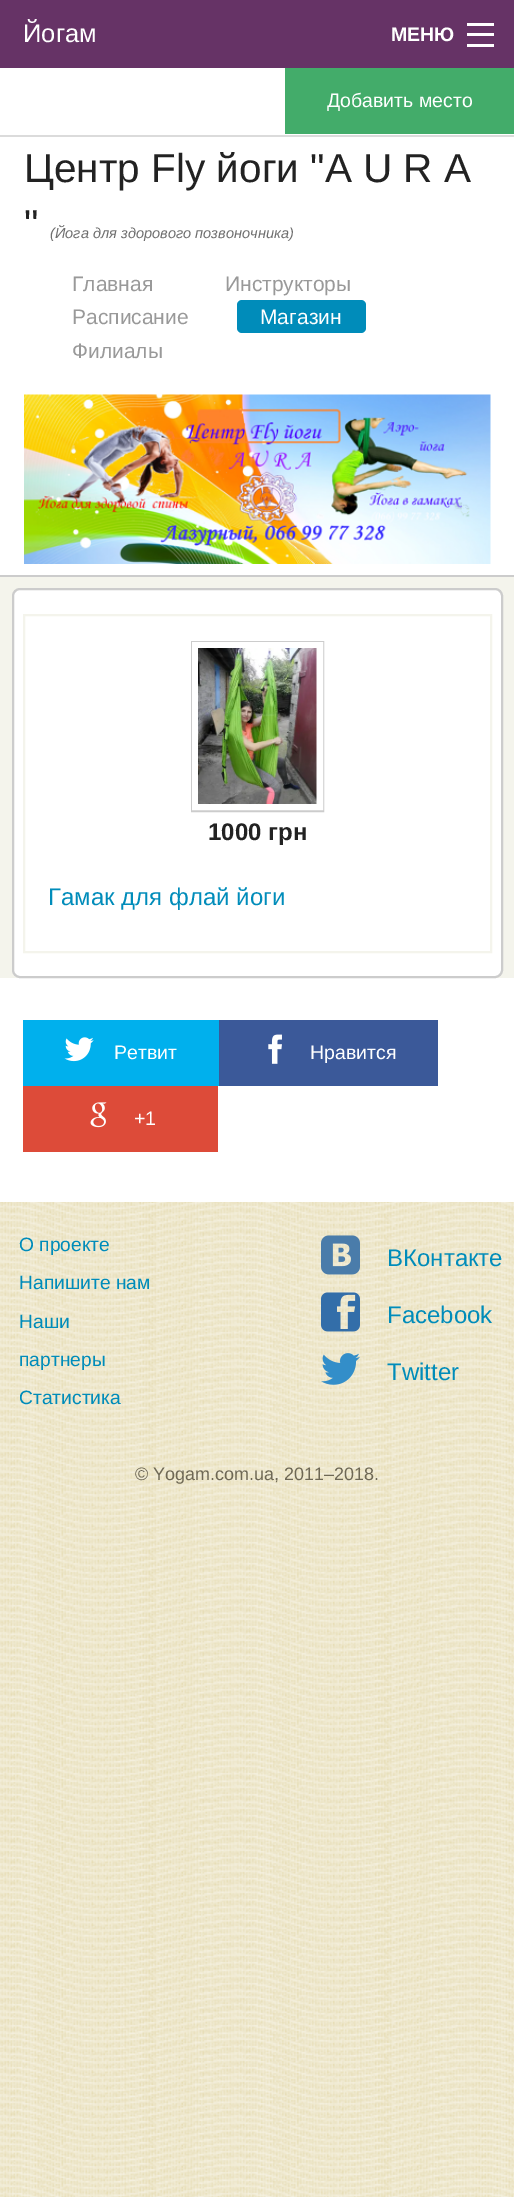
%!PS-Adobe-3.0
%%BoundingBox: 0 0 514 2197
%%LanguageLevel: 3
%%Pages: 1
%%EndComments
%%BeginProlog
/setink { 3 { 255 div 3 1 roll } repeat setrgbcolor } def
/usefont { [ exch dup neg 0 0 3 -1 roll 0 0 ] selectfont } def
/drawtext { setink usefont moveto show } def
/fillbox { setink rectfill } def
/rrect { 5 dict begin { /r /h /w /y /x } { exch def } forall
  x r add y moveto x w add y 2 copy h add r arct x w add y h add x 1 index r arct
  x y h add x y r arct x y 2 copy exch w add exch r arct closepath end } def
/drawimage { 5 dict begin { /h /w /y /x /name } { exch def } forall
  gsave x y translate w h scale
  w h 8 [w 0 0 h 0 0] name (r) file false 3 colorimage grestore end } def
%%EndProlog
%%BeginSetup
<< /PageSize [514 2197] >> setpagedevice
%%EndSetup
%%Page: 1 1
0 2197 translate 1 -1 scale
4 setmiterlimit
0 0 514 2197 255 255 255 fillbox
(assets/img1.rgb) 0 1202 514 995 drawimage
0 0 514 68 102 51 102 fillbox
(Йогам) 23 42 /LiberationSans-Regular 25.5 255 255 255 drawtext
(МЕНЮ) 391 41 /LiberationSans-Bold 19.5 255 255 255 drawtext
467 44 27 3 255 255 255 fillbox
467 33 27 3 255 255 255 fillbox
467 23 27 3 255 255 255 fillbox
0 135 514 2 219 219 219 fillbox
285 68 229 66 67 172 106 fillbox
(Добавить место) 327 107 /LiberationSans-Regular 19.5 255 255 255 drawtext
(Центр Fly йоги "A U R A) 24 182 /LiberationSans-Regular 40.5 34 34 34 drawtext
(") 24 238 /LiberationSans-Regular 40.5 34 34 34 drawtext
(\(Йога для здорового позвоночника\)) 50 238 /LiberationSans-Italic 14.6 111 111 111 drawtext
(Главная) 72 291 /LiberationSans-Regular 21 153 153 153 drawtext
(Инструкторы) 225 291 /LiberationSans-Regular 21 153 153 153 drawtext
(Расписание) 72 324 /LiberationSans-Regular 21 153 153 153 drawtext
0 140 186 setink
237 300 129 33 5 rrect fill
(Магазин) 260 324 /LiberationSans-Regular 21 255 255 255 drawtext
(Филиалы) 72 358 /LiberationSans-Regular 21 153 153 153 drawtext
(assets/img2.rgb) 24 394 467 170 drawimage
0 577 514 401 244 244 236 fillbox
0 575 514 2 204 204 204 fillbox
255 255 255 setink
13 589 489 388 7 rrect gsave fill grestore
204 204 204 setink
2 setlinewidth
stroke
244 244 236 setink
24 615 467 337 rectstroke
204 204 204 setink
192 642 131 169 rectstroke
255 255 255 setink
6 setlinewidth
195 645 125 162 rectstroke
(assets/img3.rgb) 198 648 119 156 drawimage
(1000 грн) 208 840 /LiberationSans-Bold 24 34 34 34 drawtext
(Гамак для флай йоги) 48 905 /LiberationSans-Regular 24 0 140 186 drawtext
23 1020 196 66 0 176 237 fillbox
(assets/img4.rgb) 64 1037 30 25 drawimage
(Ретвит) 114 1059 /LiberationSans-Regular 19.5 255 255 255 drawtext
219 1020 219 66 59 89 153 fillbox
(assets/img5.rgb) 268 1034 14 30 drawimage
(Нравится) 310 1059 /LiberationSans-Regular 19.5 255 255 255 drawtext
23 1086 195 66 221 75 57 fillbox
(assets/img6.rgb) 90 1102 17 26 drawimage
(+1) 134 1125 /LiberationSans-Regular 19.5 255 255 255 drawtext
(О проекте) 19 1251 /LiberationSans-Regular 19.25 0 140 186 drawtext
(Напишите нам) 19 1289 /LiberationSans-Regular 19.25 0 140 186 drawtext
(Наши) 19 1328 /LiberationSans-Regular 19.25 0 140 186 drawtext
(партнеры) 19 1366 /LiberationSans-Regular 19.25 0 140 186 drawtext
(Статистика) 19 1404 /LiberationSans-Regular 19.25 0 140 186 drawtext
(assets/img7.rgb) 321 1235 39 40 drawimage
(ВКонтакте) 387 1266 /LiberationSans-Regular 24 0 140 186 drawtext
(assets/img8.rgb) 321 1292 39 40 drawimage
(Facebook) 387 1323 /LiberationSans-Regular 24 0 140 186 drawtext
(assets/img9.rgb) 321 1353 39 32 drawimage
(Twitter) 387 1380 /LiberationSans-Regular 24 0 140 186 drawtext
(© Yogam.com.ua, 2011–2018.) 135 1480 /LiberationSans-Regular 18 110 104 85 drawtext
showpage
%%EOF
